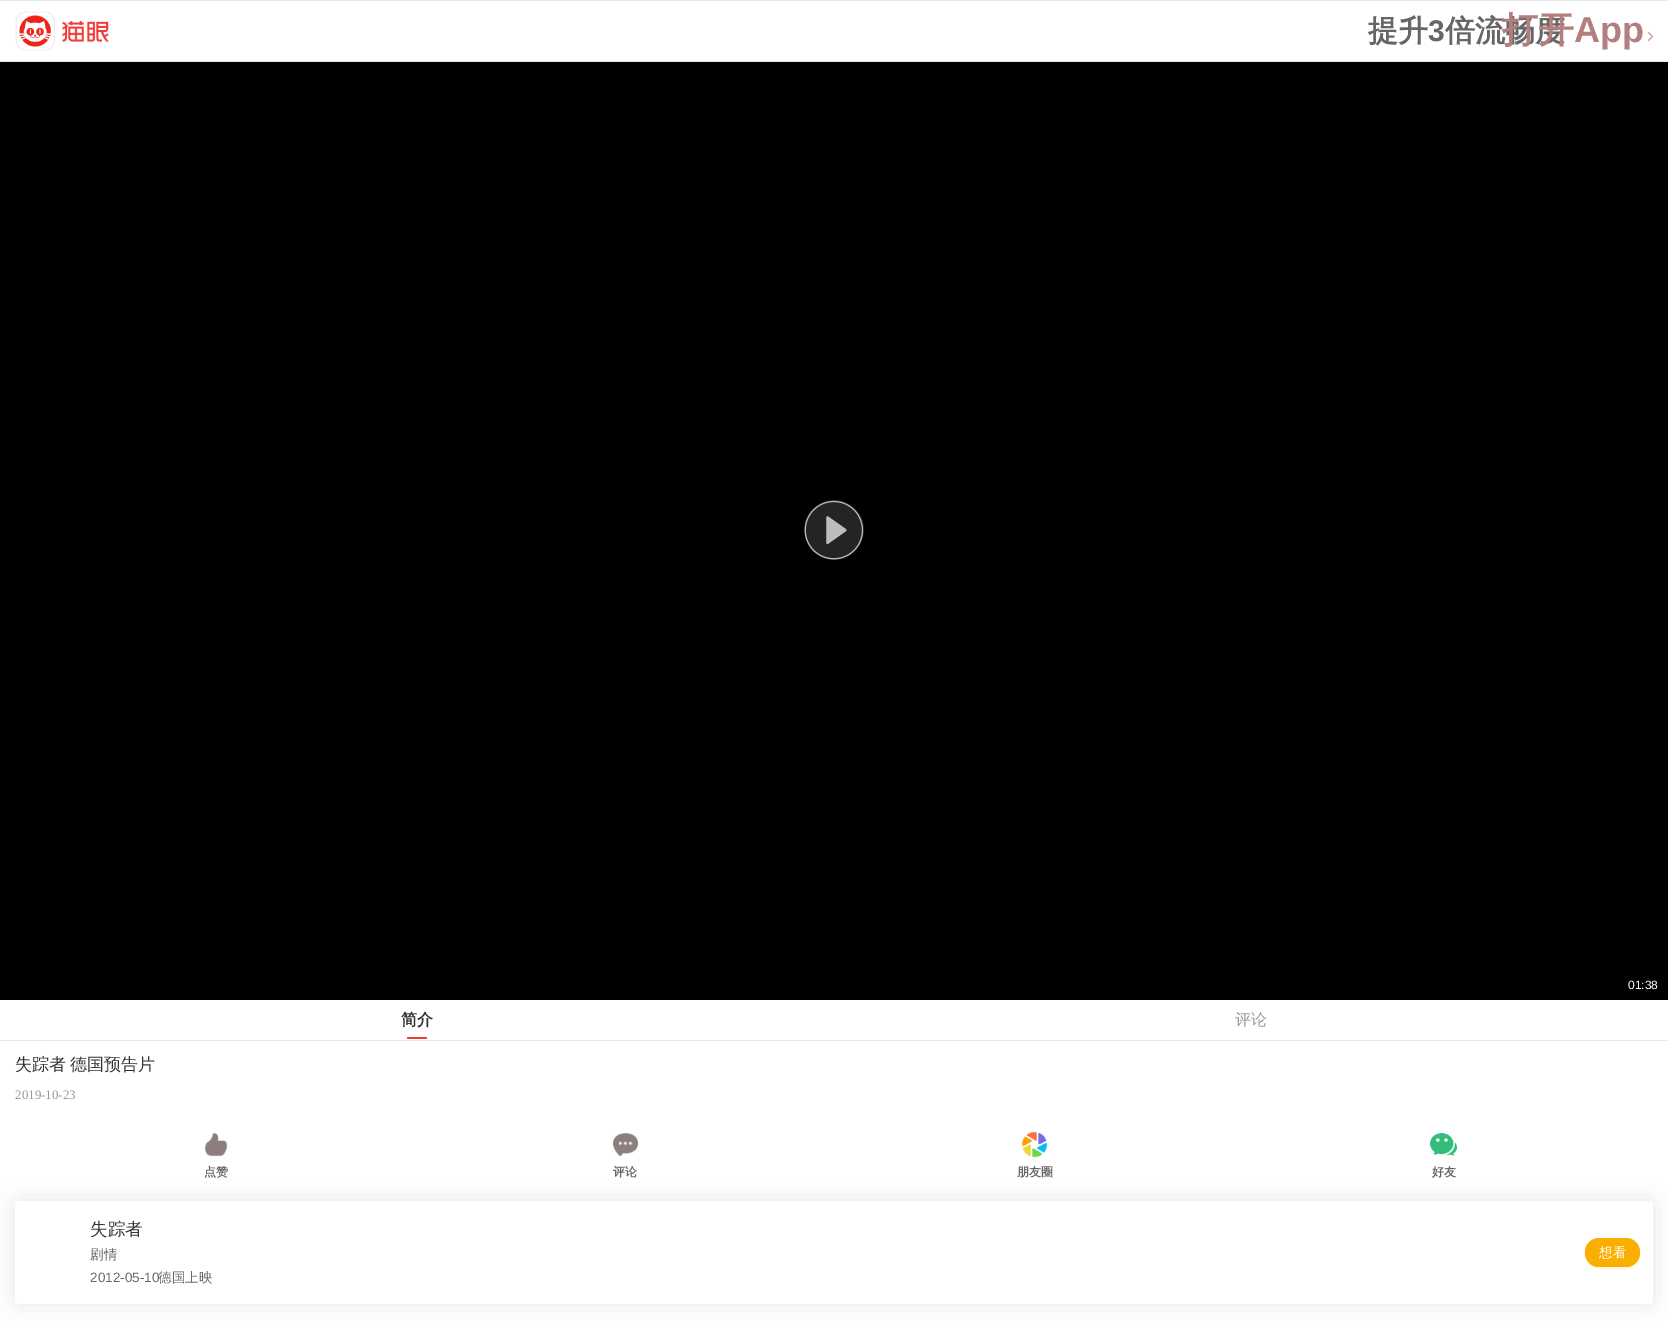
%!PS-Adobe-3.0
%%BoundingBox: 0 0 1668 1341
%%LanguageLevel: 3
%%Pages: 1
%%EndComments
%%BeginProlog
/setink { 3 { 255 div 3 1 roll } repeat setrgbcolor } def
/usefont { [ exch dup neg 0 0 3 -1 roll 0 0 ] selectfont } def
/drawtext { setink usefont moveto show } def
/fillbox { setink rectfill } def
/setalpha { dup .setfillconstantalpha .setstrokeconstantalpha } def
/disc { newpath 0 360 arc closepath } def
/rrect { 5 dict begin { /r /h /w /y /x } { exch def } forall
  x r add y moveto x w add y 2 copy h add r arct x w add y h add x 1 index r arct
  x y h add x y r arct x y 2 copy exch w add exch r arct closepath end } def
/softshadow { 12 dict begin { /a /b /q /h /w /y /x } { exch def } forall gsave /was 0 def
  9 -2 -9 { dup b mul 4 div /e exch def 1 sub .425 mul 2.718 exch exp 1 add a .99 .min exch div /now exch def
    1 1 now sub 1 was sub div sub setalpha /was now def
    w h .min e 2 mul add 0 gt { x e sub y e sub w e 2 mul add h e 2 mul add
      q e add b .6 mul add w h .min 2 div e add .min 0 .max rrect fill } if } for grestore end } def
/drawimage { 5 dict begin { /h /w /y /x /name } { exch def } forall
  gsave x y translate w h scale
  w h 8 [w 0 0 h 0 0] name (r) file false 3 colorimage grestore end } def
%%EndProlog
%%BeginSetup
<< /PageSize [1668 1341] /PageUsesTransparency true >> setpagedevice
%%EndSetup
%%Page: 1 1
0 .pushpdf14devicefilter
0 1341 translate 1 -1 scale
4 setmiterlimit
0 0 1668 1341 255 255 255 fillbox
0 0 1668 1 232 232 232 fillbox
0 61 1668 1 232 232 232 fillbox
(assets/img1.rgb) 15 11 94 40 drawimage
(提升) 1368 41 /WenQuanYiZenHei-Bold 30 102 102 102 drawtext
(3) 1428 41 /LiberationSans-Bold 30 102 102 102 drawtext
(倍流畅度) 1445 41 /WenQuanYiZenHei-Bold 30 102 102 102 drawtext
(打开) 1502 42 /WenQuanYiZenHei-Bold 36 179 126 126 drawtext
(App) 1574 42 /LiberationSans-Bold 36 179 126 126 drawtext
(assets/img2.rgb) 1647 31 7 11 drawimage
0 62 1668 938 0 0 0 fillbox
36 36 36 setink
834 530 30 disc fill
(assets/img3.rgb) 804 500 60 60 drawimage
(01:38) 1628 989 /LiberationSans-Regular 12 255 255 255 drawtext
0 1040 1668 1 232 232 232 fillbox
(简介) 401 1025 /WenQuanYiZenHei-Bold 16 51 51 51 drawtext
240 61 55 setink
407 1037 20 2 1 rrect fill
(评论) 1235 1025 /WenQuanYiZenHei-Medium 16 153 153 153 drawtext
/WenQuanYiZenHei-Medium 17 usefont
51 51 51 setink
15 1070 moveto -1 0 32 (失踪者 德国预告片) widthshow
(2019-10-23) 15 1099 /LiberationSerif-Regular 13 153 153 153 drawtext
(assets/img4.rgb) 204 1133 24 24 drawimage
(点赞) 204 1176 /WenQuanYiZenHei-Bold 12 102 102 102 drawtext
(assets/img5.rgb) 613 1133 26 24 drawimage
(评论) 613 1176 /WenQuanYiZenHei-Bold 12 102 102 102 drawtext
(assets/img6.rgb) 1021 1131 27 27 drawimage
(朋友圈) 1017 1176 /WenQuanYiZenHei-Bold 12 102 102 102 drawtext
(assets/img7.rgb) 1430 1133 27 23 drawimage
(好友) 1432 1176 /WenQuanYiZenHei-Bold 12 102 102 102 drawtext
0 0 0 setink
15 1201 1638 103 4 10.5 0.1 softshadow
255 255 255 setink
15 1201 1638 103 4 rrect fill
(失踪者) 90 1235 /WenQuanYiZenHei-Medium 17.5 51 51 51 drawtext
(剧情) 90 1259 /WenQuanYiZenHei-Medium 13.5 102 102 102 drawtext
(2012-05-10) 90 1282 /LiberationSans-Regular 13.5 102 102 102 drawtext
(德国上映) 158 1282 /WenQuanYiZenHei-Medium 13.5 102 102 102 drawtext
250 175 0 setink
1585 1240 55 29 14 1 0.15 softshadow
1585 1238 55 29 14 rrect fill
(想看) 1599 1257 /WenQuanYiZenHei-Medium 13.5 255 255 255 drawtext
.poppdf14devicefilter showpage
%%EOF
